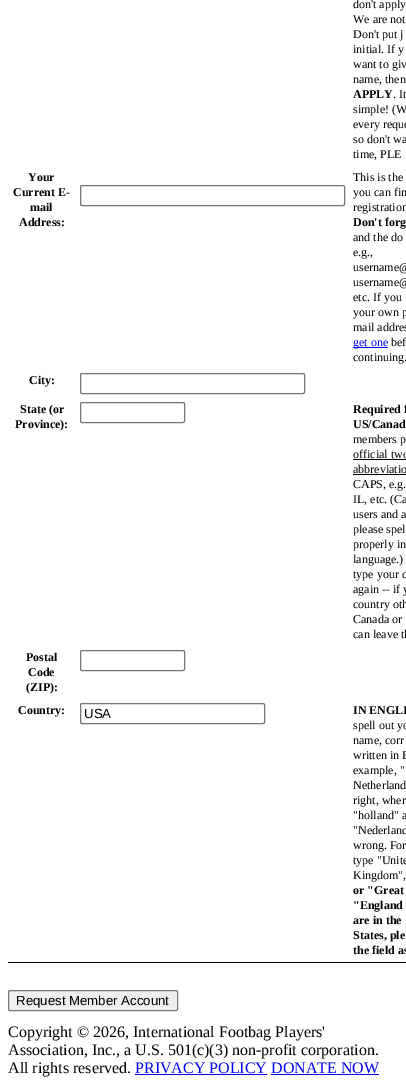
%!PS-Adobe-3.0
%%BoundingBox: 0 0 406 1085
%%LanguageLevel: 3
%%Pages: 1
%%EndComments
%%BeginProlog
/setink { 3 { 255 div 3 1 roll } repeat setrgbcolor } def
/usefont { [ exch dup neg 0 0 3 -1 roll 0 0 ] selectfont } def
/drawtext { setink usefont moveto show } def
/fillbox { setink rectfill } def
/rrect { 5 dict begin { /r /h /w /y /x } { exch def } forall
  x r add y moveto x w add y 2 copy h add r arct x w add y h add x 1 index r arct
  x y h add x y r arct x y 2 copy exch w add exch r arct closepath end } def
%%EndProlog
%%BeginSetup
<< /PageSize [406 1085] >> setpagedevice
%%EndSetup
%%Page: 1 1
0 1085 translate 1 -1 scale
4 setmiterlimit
0 0 406 1085 255 255 255 fillbox
8 962 398 1 0 0 0 fillbox
(don't apply) 353 8 /LiberationSerif-Regular 12 0 0 0 drawtext
(We are not) 353 23 /LiberationSerif-Regular 12 0 0 0 drawtext
(Don't put j) 353 38 /LiberationSerif-Regular 12 0 0 0 drawtext
(initial. If y) 353 53 /LiberationSerif-Regular 12 0 0 0 drawtext
(want to giv) 353 68 /LiberationSerif-Regular 12 0 0 0 drawtext
(name, then) 353 83 /LiberationSerif-Regular 12 0 0 0 drawtext
(APPLY) 353 98 /LiberationSerif-Bold 12 0 0 0 drawtext
(. It) 393 98 /LiberationSerif-Regular 12 0 0 0 drawtext
(simple! \(W) 353 113 /LiberationSerif-Regular 12 0 0 0 drawtext
(every reque) 353 128 /LiberationSerif-Regular 12 0 0 0 drawtext
(so don't wa) 353 143 /LiberationSerif-Regular 12 0 0 0 drawtext
(time, PLE) 353 158 /LiberationSerif-Regular 12 0 0 0 drawtext
(Your) 28 181 /LiberationSerif-Bold 12 0 0 0 drawtext
(Current E-) 13 196 /LiberationSerif-Bold 12 0 0 0 drawtext
(mail) 30 211 /LiberationSerif-Bold 12 0 0 0 drawtext
(Address:) 19 226 /LiberationSerif-Bold 12 0 0 0 drawtext
118 118 118 setink
80.5 185.5 264 20 1.5 rrect stroke
(This is the) 353 181 /LiberationSerif-Regular 12 0 0 0 drawtext
(you can fin) 353 196 /LiberationSerif-Regular 12 0 0 0 drawtext
(registration) 353 211 /LiberationSerif-Regular 12 0 0 0 drawtext
(Don't forg) 353 226 /LiberationSerif-Bold 12 0 0 0 drawtext
(and the do) 353 241 /LiberationSerif-Regular 12 0 0 0 drawtext
(e.g.,) 353 256 /LiberationSerif-Regular 12 0 0 0 drawtext
(username@) 353 271 /LiberationSerif-Regular 12 0 0 0 drawtext
(username@) 353 286 /LiberationSerif-Regular 12 0 0 0 drawtext
(etc. If you) 353 301 /LiberationSerif-Regular 12 0 0 0 drawtext
(your own p) 353 316 /LiberationSerif-Regular 12 0 0 0 drawtext
(mail addres) 353 331 /LiberationSerif-Regular 12 0 0 0 drawtext
353 347 35 1 0 0 238 fillbox
(get one) 353 346 /LiberationSerif-Regular 12 0 0 238 drawtext
(bef) 391 346 /LiberationSerif-Regular 12 0 0 0 drawtext
(continuing.) 353 361 /LiberationSerif-Regular 12 0 0 0 drawtext
(City:) 29 384 /LiberationSerif-Bold 12 0 0 0 drawtext
118 118 118 setink
80.5 373.5 224 20 1.5 rrect stroke
(State \(or) 20 413 /LiberationSerif-Bold 12 0 0 0 drawtext
(Province\):) 15 428 /LiberationSerif-Bold 12 0 0 0 drawtext
118 118 118 setink
80.5 402.5 104 20 1.5 rrect stroke
(Required f) 353 413 /LiberationSerif-Bold 12 0 0 0 drawtext
(US/Canad) 353 428 /LiberationSerif-Bold 12 0 0 0 drawtext
(members p) 353 443 /LiberationSerif-Regular 12 0 0 0 drawtext
(official two) 353 458 /LiberationSerif-Regular 12 0 0 0 drawtext
353 459 53 1 0 0 0 fillbox
(abbreviatio) 353 473 /LiberationSerif-Regular 12 0 0 0 drawtext
353 474 53 1 0 0 0 fillbox
(CAPS, e.g.) 353 488 /LiberationSerif-Regular 12 0 0 0 drawtext
(IL, etc. \(Ca) 353 503 /LiberationSerif-Regular 12 0 0 0 drawtext
(users and a) 353 518 /LiberationSerif-Regular 12 0 0 0 drawtext
(please spel) 353 533 /LiberationSerif-Regular 12 0 0 0 drawtext
(properly in) 353 548 /LiberationSerif-Regular 12 0 0 0 drawtext
(language.\)) 353 563 /LiberationSerif-Regular 12 0 0 0 drawtext
(type your c) 353 578 /LiberationSerif-Regular 12 0 0 0 drawtext
(again -- if y) 353 593 /LiberationSerif-Regular 12 0 0 0 drawtext
(country oth) 353 608 /LiberationSerif-Regular 12 0 0 0 drawtext
(Canada or) 353 623 /LiberationSerif-Regular 12 0 0 0 drawtext
(can leave th) 353 638 /LiberationSerif-Regular 12 0 0 0 drawtext
(Postal) 26 661 /LiberationSerif-Bold 12 0 0 0 drawtext
(Code) 28 676 /LiberationSerif-Bold 12 0 0 0 drawtext
(\(ZIP\):) 26 691 /LiberationSerif-Bold 12 0 0 0 drawtext
118 118 118 setink
80.5 650.5 104 20 1.5 rrect stroke
(Country:) 18 714 /LiberationSerif-Bold 12 0 0 0 drawtext
118 118 118 setink
80.5 703.5 184 20 1.5 rrect stroke
(USA) 84 718 /LiberationSans-Regular 13.25 0 0 0 drawtext
(IN ENGLI) 353 714 /LiberationSerif-Bold 12 0 0 0 drawtext
(spell out yo) 353 729 /LiberationSerif-Regular 12 0 0 0 drawtext
(name, corr) 353 744 /LiberationSerif-Regular 12 0 0 0 drawtext
(written in E) 353 759 /LiberationSerif-Regular 12 0 0 0 drawtext
(example, ") 353 774 /LiberationSerif-Regular 12 0 0 0 drawtext
(Netherland) 353 789 /LiberationSerif-Regular 12 0 0 0 drawtext
(right, wher) 353 804 /LiberationSerif-Regular 12 0 0 0 drawtext
("holland" a) 353 819 /LiberationSerif-Regular 12 0 0 0 drawtext
("Nederland) 353 834 /LiberationSerif-Regular 12 0 0 0 drawtext
(wrong. For) 353 849 /LiberationSerif-Regular 12 0 0 0 drawtext
(type "Unite) 353 864 /LiberationSerif-Regular 12 0 0 0 drawtext
(Kingdom",) 353 879 /LiberationSerif-Regular 12 0 0 0 drawtext
(or "Great) 353 894 /LiberationSerif-Bold 12 0 0 0 drawtext
("England) 353 909 /LiberationSerif-Bold 12 0 0 0 drawtext
(are in the) 353 924 /LiberationSerif-Bold 12 0 0 0 drawtext
(States, ple) 353 939 /LiberationSerif-Bold 12 0 0 0 drawtext
(the field as) 353 954 /LiberationSerif-Bold 12 0 0 0 drawtext
239 239 239 setink
8.5 990.5 169 20 1.5 rrect gsave fill grestore
118 118 118 setink
stroke
(Request Member Account) 16 1005 /LiberationSans-Regular 13.25 0 0 0 drawtext
(Copyright © 2026, International Footbag Players') 8 1037 /LiberationSerif-Regular 16 0 0 0 drawtext
(Association, Inc., a U.S. 501\(c\)\(3\) non-profit corporation.) 8 1055 /LiberationSerif-Regular 16 0 0 0 drawtext
(All rights reserved.) 8 1073 /LiberationSerif-Regular 16 0 0 0 drawtext
(PRIVACY POLICY DONATE NOW) 135 1073 /LiberationSerif-Regular 16 0 0 238 drawtext
135 1074 132 1 0 0 238 fillbox
271 1074 108 1 0 0 238 fillbox
showpage
%%EOF
